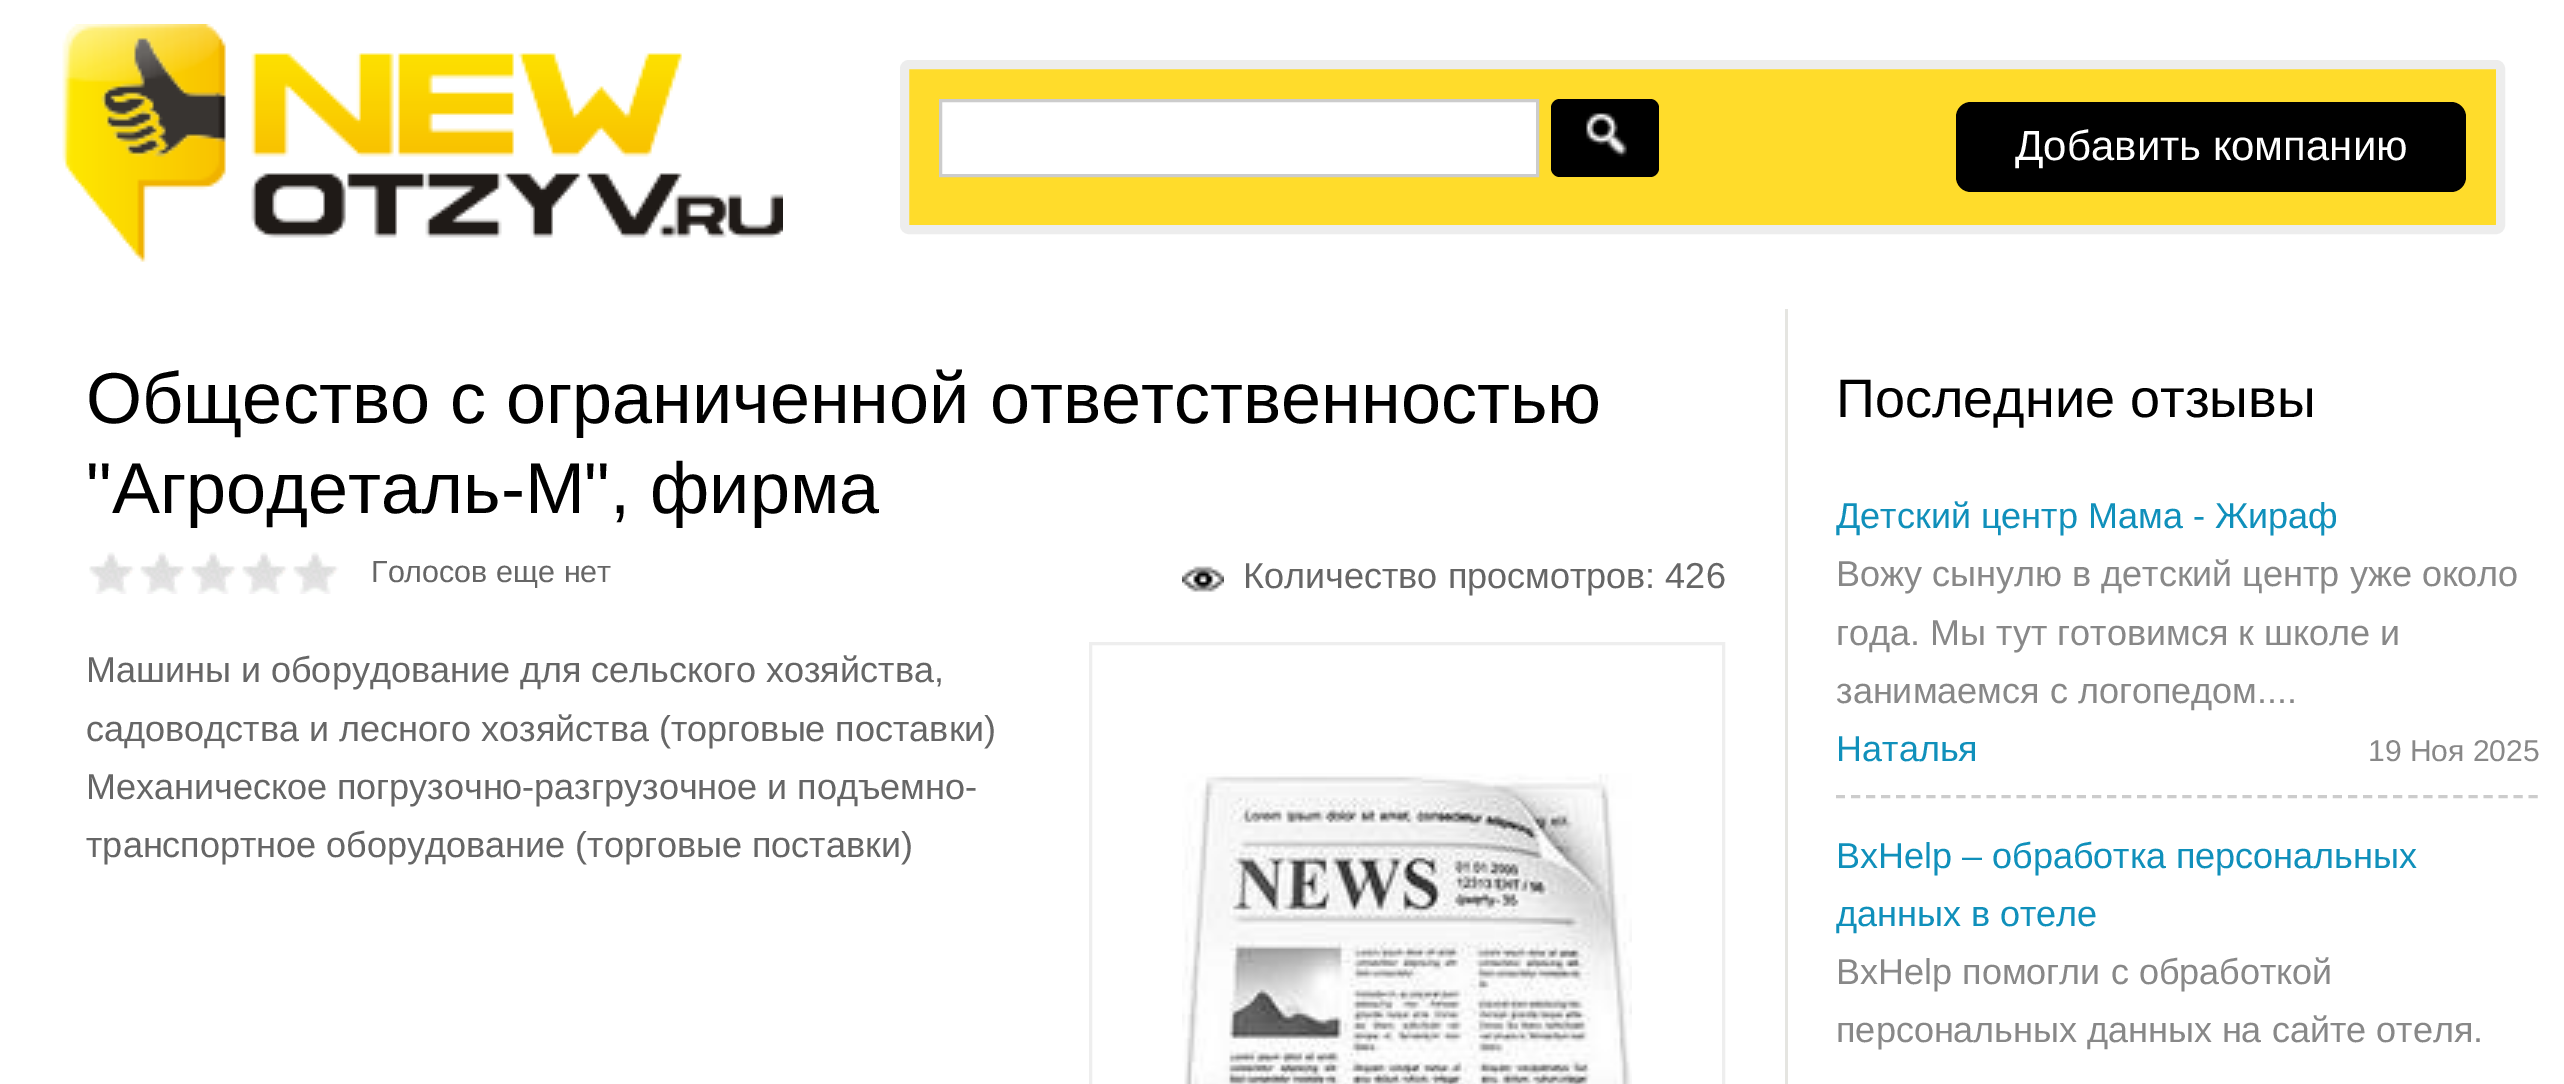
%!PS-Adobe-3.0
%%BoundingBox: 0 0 2564 1084
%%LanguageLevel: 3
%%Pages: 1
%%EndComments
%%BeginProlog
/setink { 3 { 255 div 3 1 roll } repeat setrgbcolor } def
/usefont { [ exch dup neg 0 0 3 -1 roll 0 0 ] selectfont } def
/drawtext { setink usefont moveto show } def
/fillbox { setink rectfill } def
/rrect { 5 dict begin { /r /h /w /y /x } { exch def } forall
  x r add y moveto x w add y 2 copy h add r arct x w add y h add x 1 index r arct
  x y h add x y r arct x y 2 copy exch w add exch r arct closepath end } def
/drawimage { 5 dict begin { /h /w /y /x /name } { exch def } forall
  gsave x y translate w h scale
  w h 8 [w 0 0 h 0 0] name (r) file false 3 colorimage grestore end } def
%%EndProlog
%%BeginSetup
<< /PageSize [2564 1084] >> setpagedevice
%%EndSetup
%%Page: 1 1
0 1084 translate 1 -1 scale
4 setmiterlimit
0 0 2564 1084 255 255 255 fillbox
(assets/img1.rgb) 62 24 721 238 drawimage
255 220 43 setink
904.5 64.5 1596 165 4.5 rrect gsave fill grestore
237 237 237 setink
9 setlinewidth
stroke
255 255 255 setink
940.5 100.5 moveto 1537.5 100.5 lineto 1537.5 175.5 lineto 940.5 175.5 lineto closepath gsave fill grestore
204 204 204 setink
3 setlinewidth
stroke
0 0 0 setink
1551 99 108 78 9 rrect fill
(assets/img2.rgb) 1586 113 41 44 drawimage
1956 102 510 90 15 rrect fill
(Добавить компанию) 2015 160 /LiberationSans-Regular 42 255 255 255 drawtext
1785 309 3 775 229 229 225 fillbox
(Общество с ограниченной ответственностью) 86 423 /LiberationSans-Regular 72 0 0 0 drawtext
("Агродеталь-М", фирма) 86 513 /LiberationSans-Regular 72 0 0 0 drawtext
(assets/img3.rgb) 89 552 46 42 drawimage
(assets/img4.rgb) 90 555 42 30 drawimage
(assets/img3.rgb) 140 552 46 42 drawimage
(assets/img4.rgb) 141 555 42 30 drawimage
(assets/img3.rgb) 191 552 46 42 drawimage
(assets/img4.rgb) 192 555 42 30 drawimage
(assets/img3.rgb) 242 552 46 42 drawimage
(assets/img4.rgb) 243 555 42 30 drawimage
(assets/img5.rgb) 293 552 46 42 drawimage
(assets/img6.rgb) 294 555 42 30 drawimage
(Голосов еще нет) 371 582 /LiberationSans-Regular 30.5 102 102 102 drawtext
(assets/img7.rgb) 1182 566 42 26 drawimage
(Количество просмотров: 426) 1243 588 /LiberationSans-Regular 36 102 102 102 drawtext
(Машины и оборудование для сельского хозяйства,) 86 682 /LiberationSans-Regular 36 102 102 102 drawtext
(садоводства и лесного хозяйства \(торговые поставки\)) 86 741 /LiberationSans-Regular 36 102 102 102 drawtext
(Механическое погрузочно-разгрузочное и подъемно-) 86 799 /LiberationSans-Regular 36 102 102 102 drawtext
(транспортное оборудование \(торговые поставки\)) 86 857 /LiberationSans-Regular 36 102 102 102 drawtext
238 238 238 setink
1090.5 643.5 633 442 rectstroke
(assets/img8.rgb) 1182 773 450 311 drawimage
(Последние отзывы) 1836 417 /LiberationSans-Regular 54 0 0 0 drawtext
204 204 204 setink
[9 6.06] 0 setdash
1836 796.5 moveto 2538 796.5 lineto stroke
(Детский центр Мама - Жираф) 1836 528 /LiberationSans-Regular 36 16 144 187 drawtext
(Вожу сынулю в детский центр уже около) 1836 586 /LiberationSans-Regular 36 136 136 136 drawtext
(года. Мы тут готовимся к школе и) 1836 645 /LiberationSans-Regular 36 136 136 136 drawtext
(занимаемся с логопедом....) 1836 703 /LiberationSans-Regular 36 136 136 136 drawtext
(Наталья) 1836 761 /LiberationSans-Regular 36 16 144 187 drawtext
(19 Ноя 2025) 2368 761 /LiberationSans-Regular 30 136 136 136 drawtext
(BxHelp – обработка персональных) 1836 868 /LiberationSans-Regular 36 16 144 187 drawtext
(данных в отеле) 1836 926 /LiberationSans-Regular 36 16 144 187 drawtext
(BxHelp помогли с обработкой) 1836 984 /LiberationSans-Regular 36 136 136 136 drawtext
(персональных данных на сайте отеля.) 1836 1042 /LiberationSans-Regular 36 136 136 136 drawtext
showpage
%%EOF
